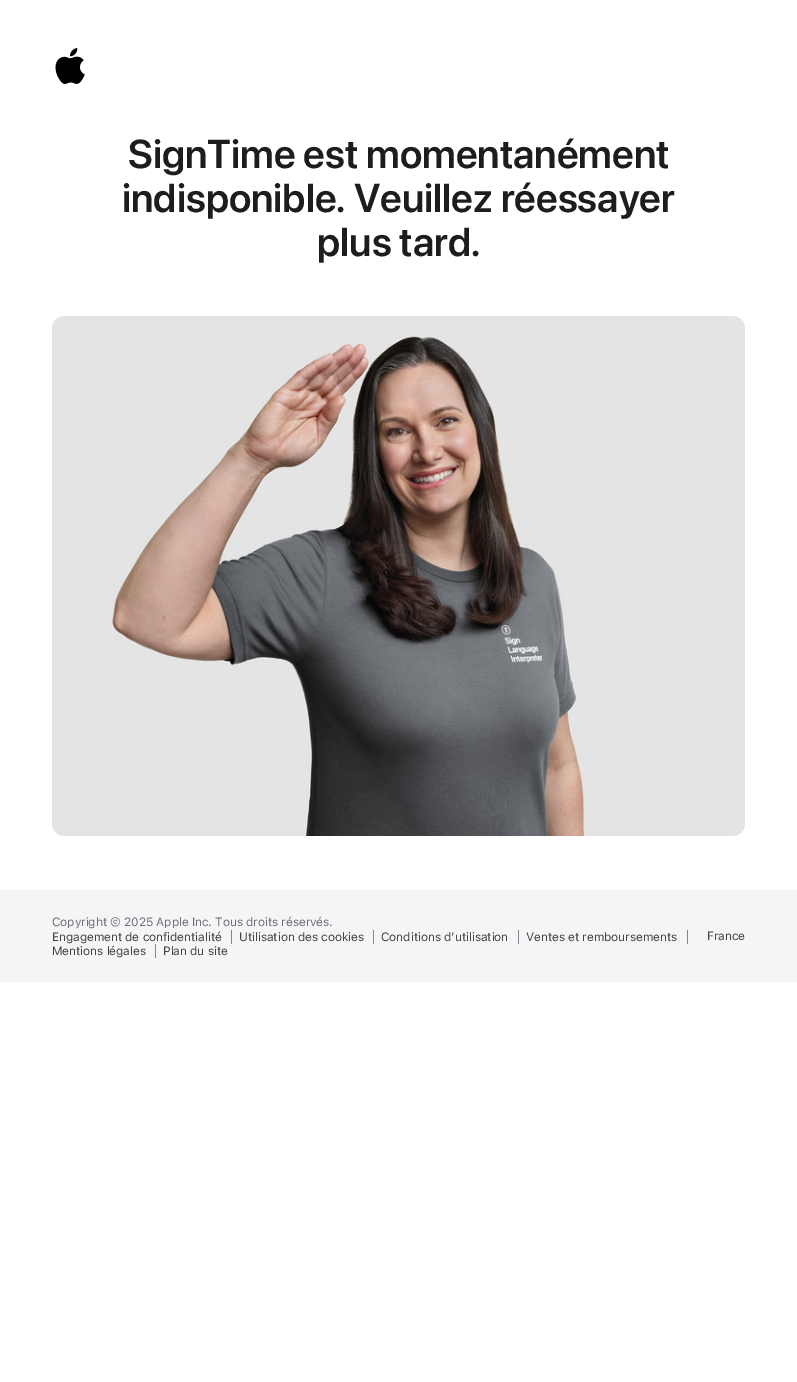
%!PS-Adobe-3.0
%%BoundingBox: 0 0 797 1382
%%LanguageLevel: 3
%%Pages: 1
%%EndComments
%%BeginProlog
/setink { 3 { 255 div 3 1 roll } repeat setrgbcolor } def
/usefont { [ exch dup neg 0 0 3 -1 roll 0 0 ] selectfont } def
/drawtext { setink usefont moveto show } def
/fillbox { setink rectfill } def
/drawimage { 5 dict begin { /h /w /y /x /name } { exch def } forall
  gsave x y translate w h scale
  w h 8 [w 0 0 h 0 0] name (r) file false 3 colorimage grestore end } def
%%EndProlog
%%BeginSetup
<< /PageSize [797 1382] >> setpagedevice
%%EndSetup
%%Page: 1 1
0 1382 translate 1 -1 scale
4 setmiterlimit
0 0 797 1382 255 255 255 fillbox
(assets/img1.rgb) 55 48 30 36 drawimage
(SignTime est momentanément) 128 168 /SFProDisplay-SemiBold 40 29 29 31 drawtext
(indisponible. Veuillez réessayer) 122 212 /SFProDisplay-SemiBold 40 29 29 31 drawtext
(plus tard.) 317 256 /SFProDisplay-SemiBold 40 29 29 31 drawtext
(assets/img2.rgb) 52 316 693 520 drawimage
0 890 797 92 245 245 247 fillbox
/SFProText-Regular 12 usefont
110 110 115 setink
52 926 moveto -0.1 0 (Copyright © 2025 Apple Inc. Tous droits réservés.) ashow
231 930 1 14 134 134 139 fillbox
66 66 69 setink
52 941 moveto -0.1 0 (Engagement de confidentialité) ashow
373 930 1 14 134 134 139 fillbox
66 66 69 setink
239 941 moveto -0.1 0 (Utilisation des cookies) ashow
518 930 1 14 134 134 139 fillbox
66 66 69 setink
381 941 moveto -0.1 0 (Conditions d’utilisation) ashow
687 930 1 14 134 134 139 fillbox
66 66 69 setink
526 941 moveto -0.1 0 (Ventes et remboursements) ashow
155 944 1 14 134 134 139 fillbox
66 66 69 setink
52 955 moveto -0.1 0 (Mentions légales) ashow
163 955 moveto -0.1 0 (Plan du site) ashow
707 940 moveto -0.1 0 (France) ashow
showpage
%%EOF
